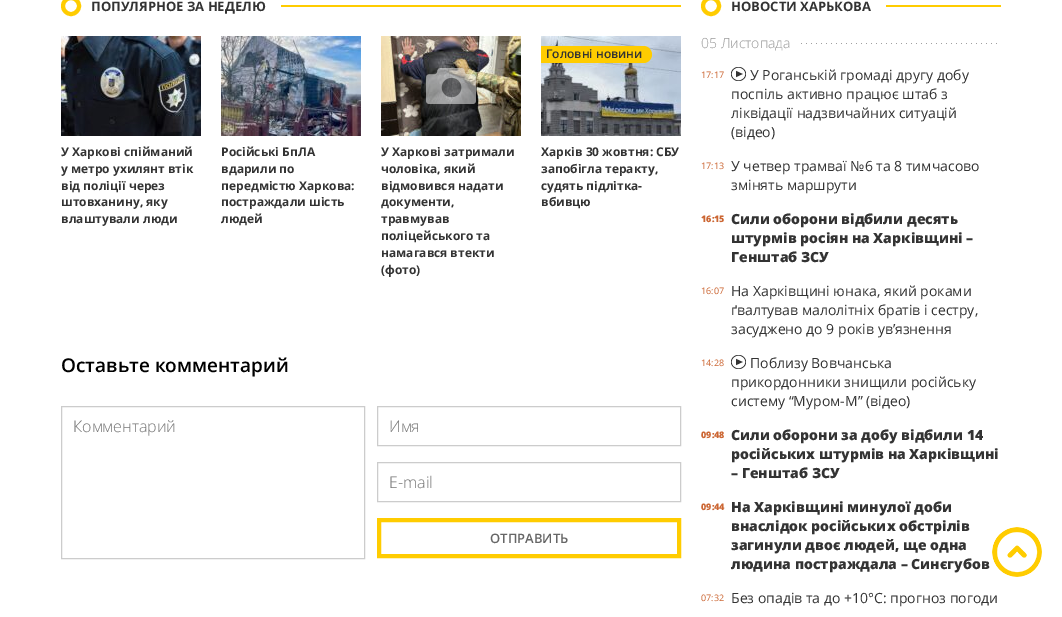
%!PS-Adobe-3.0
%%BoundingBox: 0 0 1062 617
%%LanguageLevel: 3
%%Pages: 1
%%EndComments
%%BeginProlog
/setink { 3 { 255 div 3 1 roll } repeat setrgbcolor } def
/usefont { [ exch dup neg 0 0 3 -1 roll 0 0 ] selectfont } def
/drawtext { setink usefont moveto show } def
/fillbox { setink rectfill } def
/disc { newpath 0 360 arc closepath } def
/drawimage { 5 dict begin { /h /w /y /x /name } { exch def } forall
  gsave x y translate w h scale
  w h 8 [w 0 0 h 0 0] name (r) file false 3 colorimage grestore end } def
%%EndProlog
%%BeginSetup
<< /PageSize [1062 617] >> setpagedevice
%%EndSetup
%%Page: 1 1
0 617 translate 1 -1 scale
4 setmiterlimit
0 0 1062 617 255 255 255 fillbox
255 204 0 setink
4 setlinewidth
71 6 8 disc stroke
(ПОПУЛЯРНОЕ ЗА НЕДЕЛЮ) 91 11 /OpenSans-Bold 13 51 51 51 drawtext
281 5 400 2 255 204 0 fillbox
(assets/img1.rgb) 61 36 140 100 drawimage
(У Харкові спійманий) 61 156 /OpenSans-Bold 12 51 51 51 drawtext
(у метро ухилянт втік) 61 173 /OpenSans-Bold 12 51 51 51 drawtext
(від поліції через) 61 190 /OpenSans-Bold 12 51 51 51 drawtext
(штовханину, яку) 61 206 /OpenSans-Bold 12 51 51 51 drawtext
(влаштували люди) 61 223 /OpenSans-Bold 12 51 51 51 drawtext
(assets/img2.rgb) 221 36 140 100 drawimage
(Російські БпЛА) 221 156 /OpenSans-Bold 12 51 51 51 drawtext
(вдарили по) 221 173 /OpenSans-Bold 12 51 51 51 drawtext
(передмістю Харкова:) 221 190 /OpenSans-Bold 12 51 51 51 drawtext
(постраждали шість) 221 206 /OpenSans-Bold 12 51 51 51 drawtext
(людей) 221 223 /OpenSans-Bold 12 51 51 51 drawtext
(assets/img3.rgb) 381 36 140 100 drawimage
(assets/img4.rgb) 426 68 50 36 drawimage
(У Харкові затримали) 381 156 /OpenSans-Bold 12 51 51 51 drawtext
(чоловіка, який) 381 173 /OpenSans-Bold 12 51 51 51 drawtext
(відмовився надати) 381 190 /OpenSans-Bold 12 51 51 51 drawtext
(документи,) 381 206 /OpenSans-Bold 12 51 51 51 drawtext
(травмував) 381 223 /OpenSans-Bold 12 51 51 51 drawtext
(поліцейського та) 381 240 /OpenSans-Bold 12 51 51 51 drawtext
(намагався втекти) 381 257 /OpenSans-Bold 12 51 51 51 drawtext
(\(фото\)) 381 274 /OpenSans-Bold 12 51 51 51 drawtext
(assets/img5.rgb) 541 36 140 100 drawimage
255 204 0 setink
541 46 moveto 643.5 46 lineto 648 46 652 50 652 54.5 curveto 652 59 648 63 643.5 63 curveto 541 63 lineto closepath fill
(Головні новини) 546 58 /OpenSans-SemiBold 12 51 51 51 drawtext
(Харків 30 жовтня: СБУ) 541 156 /OpenSans-Bold 12 51 51 51 drawtext
(запобігла теракту,) 541 173 /OpenSans-Bold 12 51 51 51 drawtext
(судять підлітка-) 541 190 /OpenSans-Bold 12 51 51 51 drawtext
(вбивцю) 541 206 /OpenSans-Bold 12 51 51 51 drawtext
(Оставьте комментарий) 61 372 /OpenSans-SemiBold 19 0 0 0 drawtext
204 204 204 setink
1 setlinewidth
61.5 406.5 303 152 rectstroke
(Комментарий) 73 432 /OpenSans-Light 16 117 117 117 drawtext
204 204 204 setink
377.5 406.5 303 39 rectstroke
(Имя) 389 432 /OpenSans-Light 16 117 117 117 drawtext
204 204 204 setink
377.5 462.5 303 39 rectstroke
(E-mail) 389 488 /OpenSans-Light 16 117 117 117 drawtext
255 204 0 setink
4 setlinewidth
379 520 300 36 rectstroke
(ОТПРАВИТЬ) 490 543 /OpenSans-SemiBold 13 102 102 102 drawtext
255 204 0 setink
711 6 8 disc stroke
(НОВОСТИ ХАРЬКОВА) 731 11 /OpenSans-Bold 13 51 51 51 drawtext
886 5 115 2 255 204 0 fillbox
(05 Листопада) 701 48 /OpenSans-Light 14 153 153 153 drawtext
(assets/img6.rgb) 801 43 196 1 drawimage
(17:17) 701 78 /OpenSans-Regular 9 204 102 51 drawtext
(assets/img7.rgb) 731 67 15 14 drawimage
(У Роганській громаді другу добу) 750 80 /OpenSans-Regular 14 51 51 51 drawtext
(поспіль активно працює штаб з) 731 99 /OpenSans-Regular 14 51 51 51 drawtext
(ліквідації надзвичайних ситуацій) 731 118 /OpenSans-Regular 14 51 51 51 drawtext
(\(відео\)) 731 137 /OpenSans-Regular 14 51 51 51 drawtext
(17:13) 701 169 /OpenSans-Regular 9 204 102 51 drawtext
(У четвер трамваї №6 та 8 тимчасово) 731 171 /OpenSans-Regular 14 51 51 51 drawtext
(змінять маршрути) 731 190 /OpenSans-Regular 14 51 51 51 drawtext
(16:15) 701 222 /OpenSans-ExtraBold 9 204 102 51 drawtext
(Сили оборони відбили десять) 731 224 /OpenSans-ExtraBold 14 51 51 51 drawtext
(штурмів росіян на Харківщині –) 731 243 /OpenSans-ExtraBold 14 51 51 51 drawtext
(Генштаб ЗСУ) 731 262 /OpenSans-ExtraBold 14 51 51 51 drawtext
(16:07) 701 294 /OpenSans-Regular 9 204 102 51 drawtext
(На Харківщині юнака, який роками) 731 296 /OpenSans-Regular 14 51 51 51 drawtext
(ґвалтував малолітніх братів і сестру,) 731 315 /OpenSans-Regular 14 51 51 51 drawtext
(засуджено до 9 років увʼязнення) 731 334 /OpenSans-Regular 14 51 51 51 drawtext
(14:28) 701 366 /OpenSans-Regular 9 204 102 51 drawtext
(assets/img7.rgb) 731 355 15 14 drawimage
(Поблизу Вовчанська) 750 368 /OpenSans-Regular 14 51 51 51 drawtext
(прикордонники знищили російську) 731 387 /OpenSans-Regular 14 51 51 51 drawtext
(систему “Муром-М” \(відео\)) 731 406 /OpenSans-Regular 14 51 51 51 drawtext
(09:48) 701 438 /OpenSans-ExtraBold 9 204 102 51 drawtext
(Сили оборони за добу відбили 14) 731 440 /OpenSans-ExtraBold 14 51 51 51 drawtext
(російських штурмів на Харківщині) 731 459 /OpenSans-ExtraBold 14 51 51 51 drawtext
(– Генштаб ЗСУ) 731 478 /OpenSans-ExtraBold 14 51 51 51 drawtext
(09:44) 701 510 /OpenSans-ExtraBold 9 204 102 51 drawtext
(На Харківщині минулої доби) 731 512 /OpenSans-ExtraBold 14 51 51 51 drawtext
(внаслідок російських обстрілів) 731 531 /OpenSans-ExtraBold 14 51 51 51 drawtext
(загинули двоє людей, ще одна) 731 550 /OpenSans-ExtraBold 14 51 51 51 drawtext
(людина постраждала – Синєгубов) 731 569 /OpenSans-ExtraBold 14 51 51 51 drawtext
(07:32) 701 601 /OpenSans-Regular 9 204 102 51 drawtext
(Без опадів та до +10°С: прогноз погоди) 731 603 /OpenSans-Regular 14 51 51 51 drawtext
(assets/img8.rgb) 992 527 50 50 drawimage
showpage
%%EOF
